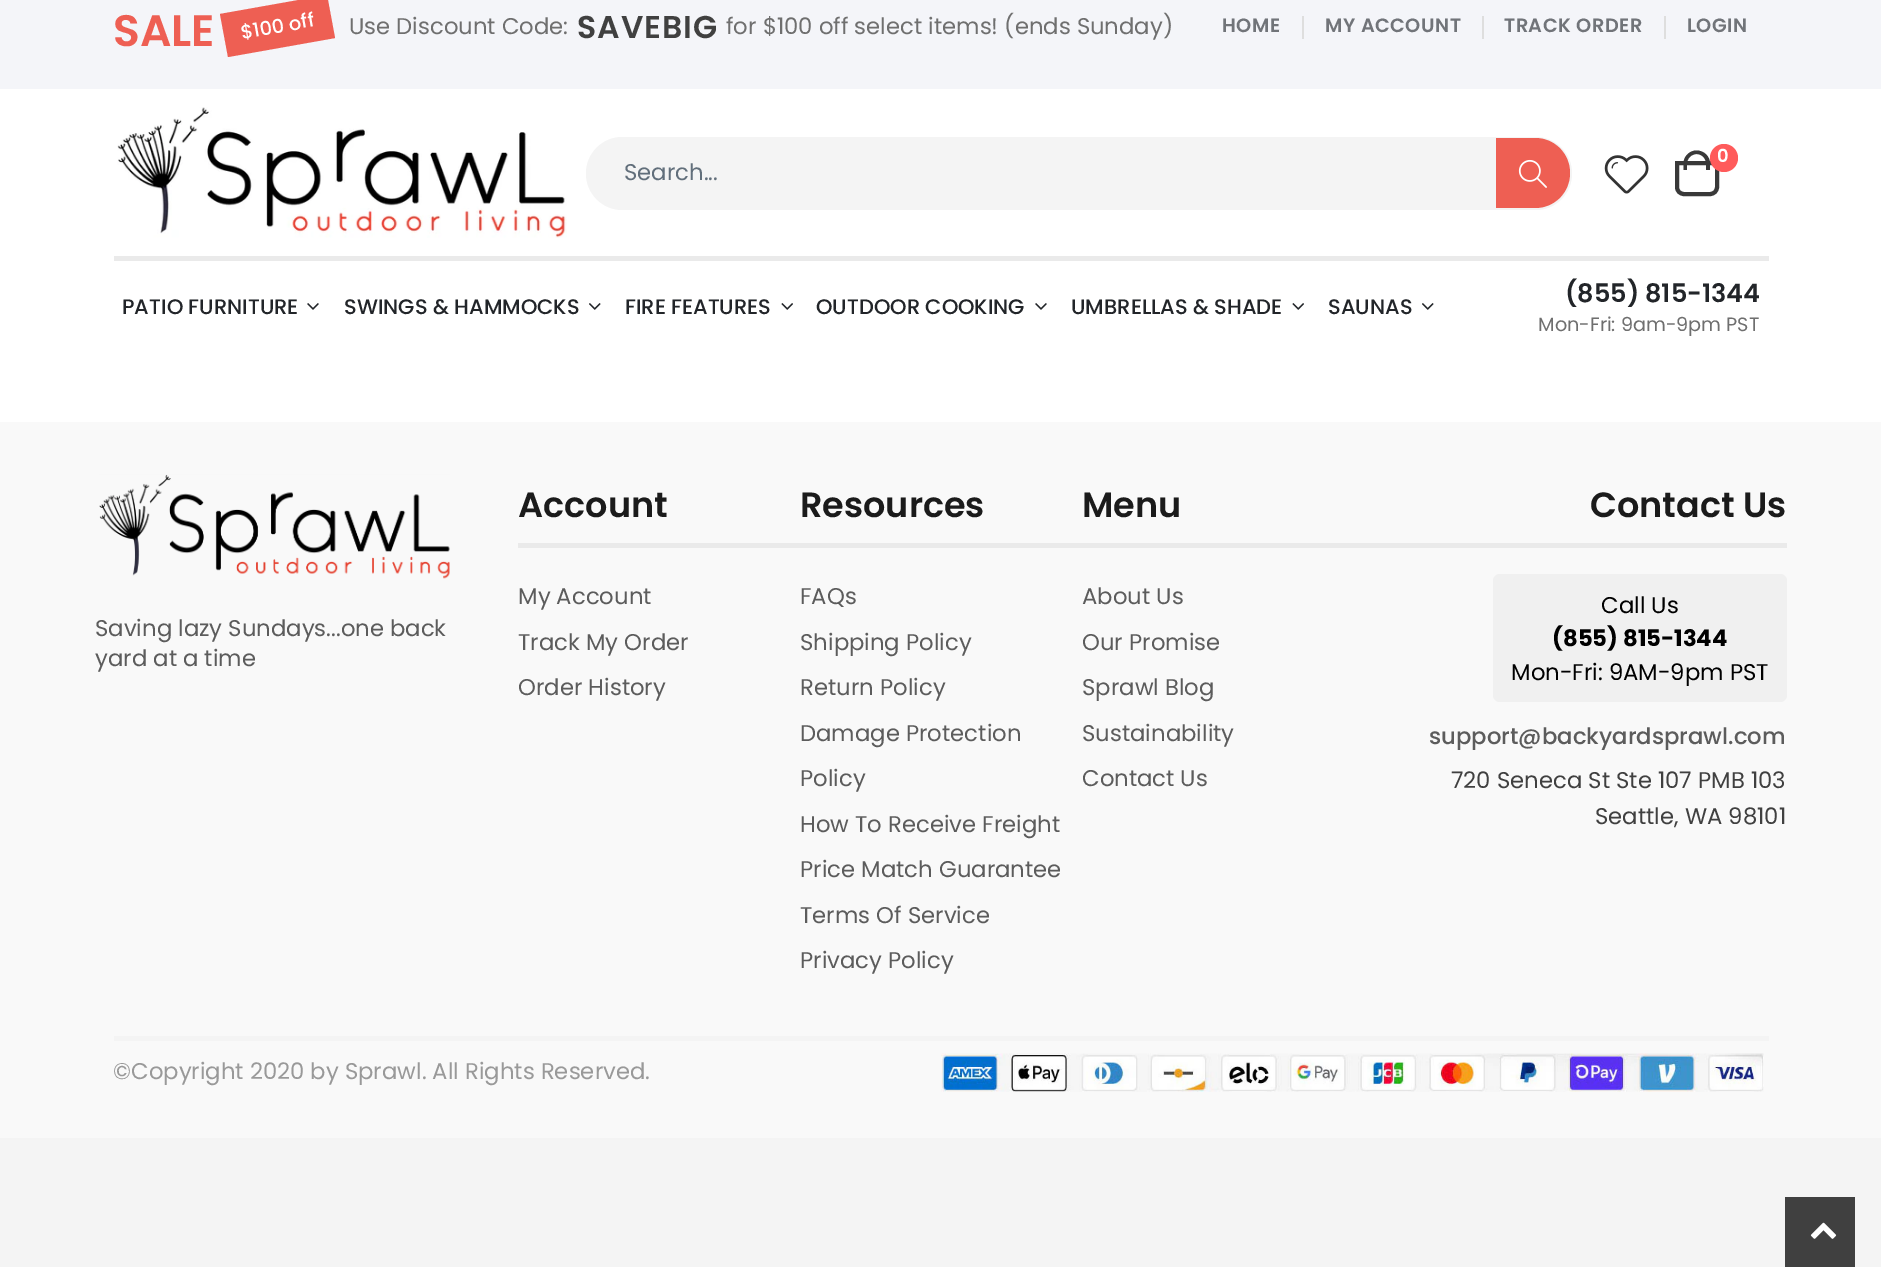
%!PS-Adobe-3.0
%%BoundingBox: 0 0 1881 1267
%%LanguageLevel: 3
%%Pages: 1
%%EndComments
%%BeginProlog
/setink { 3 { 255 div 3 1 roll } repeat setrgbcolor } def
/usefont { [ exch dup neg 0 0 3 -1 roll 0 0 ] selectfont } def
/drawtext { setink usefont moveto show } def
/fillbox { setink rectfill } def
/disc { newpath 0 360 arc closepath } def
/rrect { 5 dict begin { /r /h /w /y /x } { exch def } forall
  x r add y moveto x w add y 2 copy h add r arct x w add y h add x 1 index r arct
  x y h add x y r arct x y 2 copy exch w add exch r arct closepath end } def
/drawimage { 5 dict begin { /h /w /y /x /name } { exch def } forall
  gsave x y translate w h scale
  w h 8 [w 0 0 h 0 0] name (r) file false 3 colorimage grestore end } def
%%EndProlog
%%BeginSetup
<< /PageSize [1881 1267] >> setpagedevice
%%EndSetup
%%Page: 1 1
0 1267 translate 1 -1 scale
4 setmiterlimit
0 0 1881 1267 244 244 244 fillbox
0 89 1881 333 255 255 255 fillbox
0 0 1881 89 244 245 249 fillbox
(SALE) 113 46 /Poppins-SemiBold 44 238 95 83 drawtext
220 14 moveto 327 -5 lineto 335 38 lineto 228 57 lineto closepath fill
/Poppins-Medium 19.25 usefont
255 255 255 setink
gsave 242 39 translate -10 rotate 0 0 moveto ($100 off) show grestore
(Use Discount Code:) 349 34 /Poppins-Regular 22.75 111 111 111 drawtext
/Poppins-SemiBold 31.5 usefont
64 64 64 setink
577 38 moveto 1 0 (SAVEBIG) ashow
(for $100 off select items! \(ends Sunday\)) 726 34 /Poppins-Regular 22.75 111 111 111 drawtext
/Poppins-SemiBold 19.25 usefont
113 116 121 setink
1222 32 moveto 0.5 0 (HOME) ashow
1302 16 2 23 222 222 222 fillbox
113 116 121 setink
1325 32 moveto 0.5 0 (MY ACCOUNT) ashow
1482 16 2 23 222 222 222 fillbox
113 116 121 setink
1504 32 moveto 0.5 0 (TRACK ORDER) ashow
1664 16 2 23 222 222 222 fillbox
113 116 121 setink
1687 32 moveto 0.5 0 (LOGIN) ashow
(assets/img1.rgb) 117 107 450 131 drawimage
(assets/img2.rgb) 1604 155 45 39 drawimage
57 57 57 setink
4 setlinewidth
1677 163 moveto 1717 163 lineto 1717 187 lineto 1717 191 1714 194 1710 194 curveto 1684 194 lineto 1680 194 1677 191 1677 187 curveto closepath stroke
1696.5 150.5 moveto 1704 150.5 1710 156.5 1710 163.5 curveto 1710 170 lineto 1683.5 170 lineto 1683.5 163.5 lineto 1683.5 156.5 1689.5 150.5 1696.5 150.5 curveto closepath 1696.5 154 moveto 1702 154 1706 158.5 1706 163.5 curveto 1706 170 lineto 1687 170 lineto 1687 163.5 lineto 1687 158.5 1691.5 154 1696.5 154 curveto closepath eofill
255 91 91 setink
1724 158 14 disc fill
(0) 1717 162 /Poppins-SemiBold 18 255 255 255 drawtext
244 244 244 setink
586 137 986 73 36.5 rrect fill
(Search...) 624 180 /Poppins-Regular 22.75 98 111 123 drawtext
238 95 83 setink
1496 138 moveto 1535 138 lineto 1554.5 138 1570 153.5 1570 173 curveto 1570 192.5 1554.5 208 1535 208 curveto 1496 208 lineto closepath fill
(assets/img3.rgb) 1518 159 29 29 drawimage
114 256 1655 5 234 234 234 fillbox
(PATIO FURNITURE) 122 314 /Poppins-Medium 21 34 37 41 drawtext
(assets/img4.rgb) 307 303 12 7 drawimage
(SWINGS & HAMMOCKS) 344 314 /Poppins-Medium 21 34 37 41 drawtext
(assets/img5.rgb) 589 303 12 7 drawimage
(FIRE FEATURES) 625 314 /Poppins-Medium 21 34 37 41 drawtext
(assets/img6.rgb) 781 303 12 7 drawimage
(OUTDOOR COOKING) 816 314 /Poppins-Medium 21 34 37 41 drawtext
(assets/img4.rgb) 1035 303 12 7 drawimage
(UMBRELLAS & SHADE) 1071 314 /Poppins-Medium 21 34 37 41 drawtext
(assets/img6.rgb) 1292 303 12 7 drawimage
(SAUNAS) 1328 314 /Poppins-Medium 21 34 37 41 drawtext
(assets/img5.rgb) 1422 303 12 7 drawimage
(\(855\) 815-1344) 1565 302 /Poppins-SemiBold 25.5 34 37 41 drawtext
(Mon-Fri: 9am-9pm PST) 1538 331 /Poppins-Regular 19.25 111 111 111 drawtext
0 422 1881 716 249 249 249 fillbox
(assets/img7.rgb) 99 474 351 105 drawimage
(Saving lazy Sundays...one back) 95 636 /Poppins-Regular 22.75 92 92 92 drawtext
(yard at a time) 95 666 /Poppins-Regular 22.75 92 92 92 drawtext
518 543 1269 5 234 234 234 fillbox
(Account) 518 517 /Poppins-SemiBold 35 27 27 27 drawtext
(My Account) 518 604 /Poppins-Regular 22.75 92 92 92 drawtext
(Track My Order) 518 650 /Poppins-Regular 22.75 92 92 92 drawtext
(Order History) 518 695 /Poppins-Regular 22.75 92 92 92 drawtext
(Resources) 800 517 /Poppins-SemiBold 35 27 27 27 drawtext
(FAQs) 800 604 /Poppins-Regular 22.75 92 92 92 drawtext
(Shipping Policy) 800 650 /Poppins-Regular 22.75 92 92 92 drawtext
(Return Policy) 800 695 /Poppins-Regular 22.75 92 92 92 drawtext
(Damage Protection) 800 741 /Poppins-Regular 22.75 92 92 92 drawtext
(Policy) 800 786 /Poppins-Regular 22.75 92 92 92 drawtext
(How To Receive Freight) 800 832 /Poppins-Regular 22.75 92 92 92 drawtext
(Price Match Guarantee) 800 877 /Poppins-Regular 22.75 92 92 92 drawtext
(Terms Of Service) 800 923 /Poppins-Regular 22.75 92 92 92 drawtext
(Privacy Policy) 800 968 /Poppins-Regular 22.75 92 92 92 drawtext
(Menu) 1082 517 /Poppins-SemiBold 35 27 27 27 drawtext
(About Us) 1082 604 /Poppins-Regular 22.75 92 92 92 drawtext
(Our Promise) 1082 650 /Poppins-Regular 22.75 92 92 92 drawtext
(Sprawl Blog) 1082 695 /Poppins-Regular 22.75 92 92 92 drawtext
(Sustainability) 1082 741 /Poppins-Regular 22.75 92 92 92 drawtext
(Contact Us) 1082 786 /Poppins-Regular 22.75 92 92 92 drawtext
(Contact Us) 1590 517 /Poppins-SemiBold 35 27 27 27 drawtext
240 240 240 setink
1493 574 294 128 7 rrect fill
(Call Us) 1601 613 /Poppins-Regular 22.75 0 0 0 drawtext
(\(855\) 815-1344) 1552 646 /Poppins-Bold 22.75 0 0 0 drawtext
(Mon-Fri: 9AM-9pm PST) 1511 680 /Poppins-Regular 22.75 0 0 0 drawtext
(support@backyardsprawl.com) 1429 744 /Poppins-Medium 22.75 92 92 92 drawtext
(720 Seneca St Ste 107 PMB 103) 1451 788 /Poppins-Regular 22.75 64 64 64 drawtext
(Seattle, WA 98101) 1595 824 /Poppins-Regular 22.75 64 64 64 drawtext
114 1036 1655 5 244 244 244 fillbox
(©Copyright 2020 by Sprawl. All Rights Reserved.) 113 1079 /Poppins-Regular 22.75 153 153 153 drawtext
(assets/img8.rgb) 941 1053 823 39 drawimage
1785 1197 70 70 64 64 64 fillbox
(assets/img9.rgb) 1810 1222 27 17 drawimage
showpage
%%EOF
